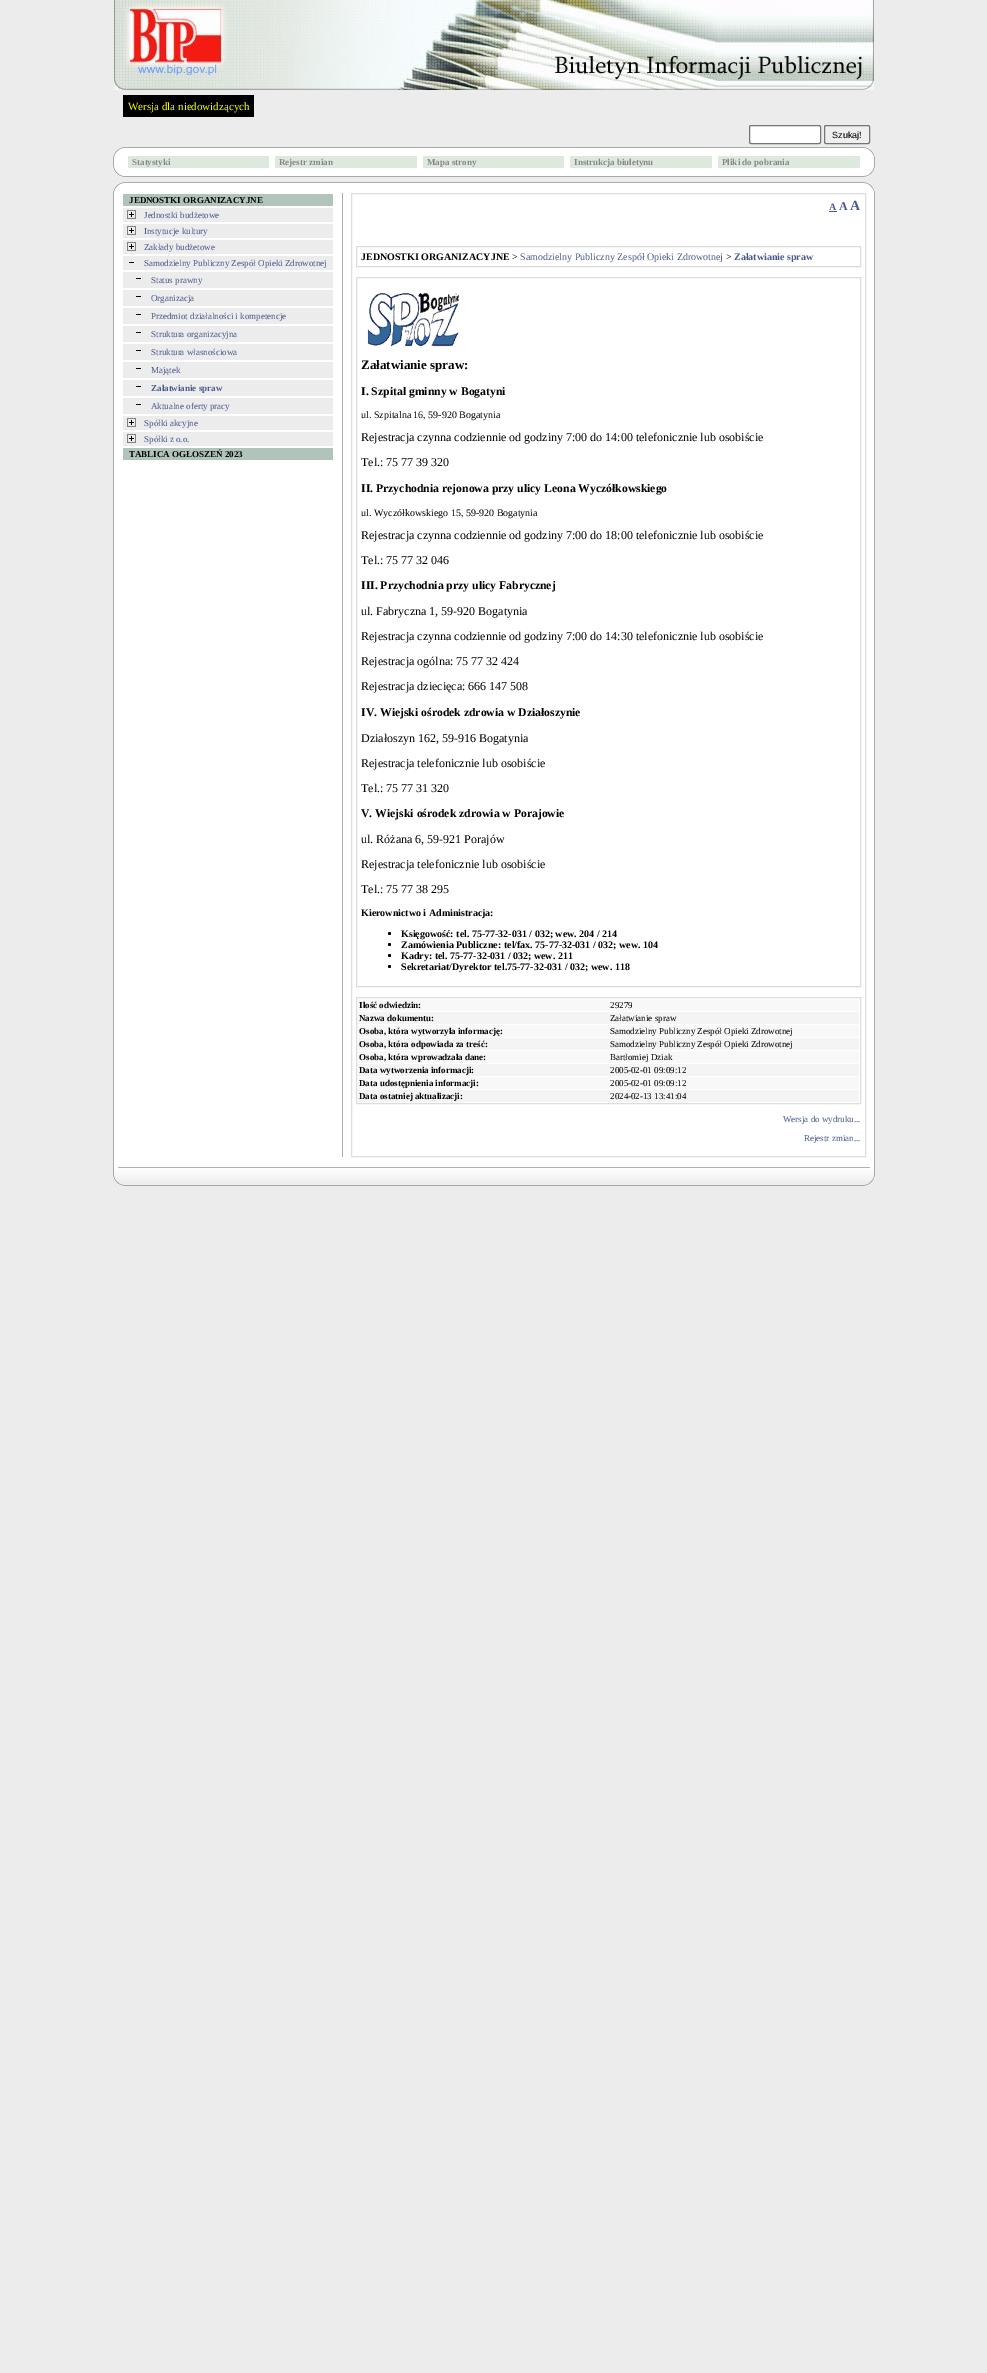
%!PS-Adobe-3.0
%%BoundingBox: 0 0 987 2373
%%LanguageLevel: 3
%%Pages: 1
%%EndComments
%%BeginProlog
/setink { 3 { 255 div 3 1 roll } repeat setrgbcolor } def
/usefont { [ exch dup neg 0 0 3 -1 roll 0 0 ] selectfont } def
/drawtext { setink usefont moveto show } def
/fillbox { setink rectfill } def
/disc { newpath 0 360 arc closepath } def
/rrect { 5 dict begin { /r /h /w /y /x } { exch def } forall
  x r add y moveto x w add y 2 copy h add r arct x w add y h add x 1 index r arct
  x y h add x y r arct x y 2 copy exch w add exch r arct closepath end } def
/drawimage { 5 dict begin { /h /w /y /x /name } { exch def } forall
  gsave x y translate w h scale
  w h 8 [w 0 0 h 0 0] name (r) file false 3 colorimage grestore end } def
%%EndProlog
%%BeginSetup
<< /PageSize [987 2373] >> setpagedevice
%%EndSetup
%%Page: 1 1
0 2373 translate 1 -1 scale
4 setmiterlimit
0 0 987 2373 236 236 236 fillbox
(assets/img1.rgb) 114 0 760 90 drawimage
123 95 131 22 0 0 0 fillbox
(Wersja dla niedowidzących) 128 110 /LiberationSerif-Regular 11 246 255 0 drawtext
255 255 255 setink
749.5 125.5 71 18 1.5 rrect gsave fill grestore
118 118 118 setink
stroke
239 239 239 setink
824.5 125.5 45 18 1.5 rrect gsave fill grestore
118 118 118 setink
stroke
(Szukaj!) 832 138 /LiberationSans-Regular 9 0 0 0 drawtext
113 158 11 8 255 255 255 fillbox
113 158 1 8 171 171 171 fillbox
864 158 11 8 255 255 255 fillbox
874 158 1 8 171 171 171 fillbox
(assets/img2.rgb) 113 147 11 11 drawimage
(assets/img3.rgb) 864 147 11 11 drawimage
124 148 740 28 255 255 255 fillbox
124 147 740 1 171 171 171 fillbox
124 176 740 1 171 171 171 fillbox
128 156 141 12 222 233 222 fillbox
(Statystyki) 132 165 /LiberationSerif-Bold 9 135 135 135 drawtext
275 156 142 12 222 233 222 fillbox
(Rejestr zmian) 279 165 /LiberationSerif-Bold 9 135 135 135 drawtext
423 156 141 12 222 233 222 fillbox
(Mapa strony) 427 165 /LiberationSerif-Bold 9 135 135 135 drawtext
570 156 142 12 222 233 222 fillbox
(Instrukcja biuletynu) 574 165 /LiberationSerif-Bold 9 135 135 135 drawtext
718 156 142 12 222 233 222 fillbox
(Pliki do pobrania) 722 165 /LiberationSerif-Bold 9 135 135 135 drawtext
(assets/img4.rgb) 113 166 11 11 drawimage
(assets/img5.rgb) 864 166 11 11 drawimage
(assets/img2.rgb) 113 182 11 11 drawimage
124 183 740 10 255 255 255 fillbox
124 182 740 1 171 171 171 fillbox
(assets/img3.rgb) 864 182 11 11 drawimage
114 193 760 974 255 255 255 fillbox
874 193 1 974 171 171 171 fillbox
113 193 1 974 171 171 171 fillbox
123 194 210 12 176 196 187 fillbox
(JEDNOSTKI ORGANIZACYJNE) 129 203 /LiberationSerif-Bold 9 0 0 0 drawtext
123 208 210 14 236 236 236 fillbox
(assets/img6.rgb) 127 210 9 9 drawimage
(Jednostki budżetowe) 144 218 /LiberationSerif-Regular 9 74 90 139 drawtext
123 224 210 14 236 236 236 fillbox
(assets/img6.rgb) 127 226 9 9 drawimage
(Instytucje kultury) 144 234 /LiberationSerif-Regular 9 74 90 139 drawtext
123 240 210 14 236 236 236 fillbox
(assets/img6.rgb) 127 242 9 9 drawimage
(Zakłady budżetowe) 144 250 /LiberationSerif-Regular 9 74 90 139 drawtext
123 256 210 14 236 236 236 fillbox
129 262 5 1 0 0 0 fillbox
(Samodzielny Publiczny Zespół Opieki Zdrowotnej) 144 266 /LiberationSerif-Regular 9 74 90 139 drawtext
123 272 210 16 236 236 236 fillbox
136 278 5 1 0 0 0 fillbox
(Status prawny) 151 283 /LiberationSerif-Regular 9 74 90 139 drawtext
123 290 210 16 236 236 236 fillbox
136 296 5 1 0 0 0 fillbox
(Organizacja) 151 301 /LiberationSerif-Regular 9 74 90 139 drawtext
123 308 210 16 236 236 236 fillbox
136 314 5 1 0 0 0 fillbox
(Przedmiot działalności i kompetencje) 151 319 /LiberationSerif-Regular 9 74 90 139 drawtext
123 326 210 16 236 236 236 fillbox
136 332 5 1 0 0 0 fillbox
(Struktura organizacyjna) 151 337 /LiberationSerif-Regular 9 74 90 139 drawtext
123 344 210 16 236 236 236 fillbox
136 350 5 1 0 0 0 fillbox
(Struktura własnościowa) 151 355 /LiberationSerif-Regular 9 74 90 139 drawtext
123 362 210 16 236 236 236 fillbox
136 368 5 1 0 0 0 fillbox
(Majątek) 151 373 /LiberationSerif-Regular 9 74 90 139 drawtext
123 380 210 16 236 236 236 fillbox
136 386 5 1 0 0 0 fillbox
(Załatwianie spraw) 151 391 /LiberationSerif-Bold 9 74 90 139 drawtext
123 398 210 16 236 236 236 fillbox
136 404 5 1 0 0 0 fillbox
(Aktualne oferty pracy) 151 409 /LiberationSerif-Regular 9 74 90 139 drawtext
123 416 210 14 236 236 236 fillbox
(assets/img6.rgb) 127 418 9 9 drawimage
(Spółki akcyjne) 144 426 /LiberationSerif-Regular 9 74 90 139 drawtext
123 432 210 14 236 236 236 fillbox
(assets/img6.rgb) 127 434 9 9 drawimage
(Spółki z o.o.) 144 442 /LiberationSerif-Regular 9 74 90 139 drawtext
123 448 210 12 176 196 187 fillbox
(TABLICA OGŁOSZEŃ 2023) 129 457 /LiberationSerif-Bold 9 0 0 0 drawtext
342 193 1 964 171 171 171 fillbox
221 221 221 setink
351.5 193.5 514 963 rectstroke
(A) 829 210 /LiberationSerif-Bold 10 74 90 139 drawtext
829 211 8 1 74 90 139 fillbox
(A) 839 210 /LiberationSerif-Bold 12 74 90 139 drawtext
(A) 850 210 /LiberationSerif-Bold 14 74 90 139 drawtext
221 221 221 setink
356.5 246.5 504 20 rectstroke
(JEDNOSTKI ORGANIZACYJNE) 361 260 /LiberationSerif-Bold 10 0 0 0 drawtext
(>) 512 260 /LiberationSerif-Regular 10 0 0 0 drawtext
(Samodzielny Publiczny Zespół Opieki Zdrowotnej) 520 260 /LiberationSerif-Regular 10 74 90 139 drawtext
(>) 726 260 /LiberationSerif-Regular 10 0 0 0 drawtext
(Załatwianie spraw) 734 260 /LiberationSerif-Bold 10 74 90 139 drawtext
221 221 221 setink
356.5 277.5 504 709 rectstroke
(assets/img7.rgb) 367 293 92 54 drawimage
(Załatwianie spraw:) 361 369 /LiberationSerif-Bold 13 0 0 0 drawtext
(I. Szpital gminny w Bogatyni) 361 395 /LiberationSerif-Bold 11.7 0 0 0 drawtext
(ul. Szpitalna 16, 59-920 Bogatynia) 361 418 /LiberationSerif-Regular 10 0 0 0 drawtext
(Rejestracja czynna codziennie od godziny 7:00 do 14:00 telefonicznie lub osobiście) 361 441 /LiberationSerif-Regular 12 0 0 0 drawtext
(Tel.: 75 77 39 320) 361 466 /LiberationSerif-Regular 12 0 0 0 drawtext
(II. Przychodnia rejonowa przy ulicy Leona Wyczółkowskiego) 361 492 /LiberationSerif-Bold 11.7 0 0 0 drawtext
(ul. Wyczółkowskiego 15, 59-920 Bogatynia) 361 516 /LiberationSerif-Regular 10 0 0 0 drawtext
(Rejestracja czynna codziennie od godziny 7:00 do 18:00 telefonicznie lub osobiście) 361 539 /LiberationSerif-Regular 12 0 0 0 drawtext
(Tel.: 75 77 32 046) 361 564 /LiberationSerif-Regular 12 0 0 0 drawtext
(III. Przychodnia przy ulicy Fabrycznej) 361 589 /LiberationSerif-Bold 11.7 0 0 0 drawtext
(ul. Fabryczna 1, 59-920 Bogatynia) 361 615 /LiberationSerif-Regular 12 0 0 0 drawtext
(Rejestracja czynna codziennie od godziny 7:00 do 14:30 telefonicznie lub osobiście) 361 640 /LiberationSerif-Regular 12 0 0 0 drawtext
(Rejestracja ogólna: 75 77 32 424) 361 665 /LiberationSerif-Regular 12 0 0 0 drawtext
(Rejestracja dziecięca: 666 147 508) 361 690 /LiberationSerif-Regular 12 0 0 0 drawtext
(IV. Wiejski ośrodek zdrowia w Działoszynie) 361 716 /LiberationSerif-Bold 11.7 0 0 0 drawtext
(Działoszyn 162, 59-916 Bogatynia) 361 742 /LiberationSerif-Regular 12 0 0 0 drawtext
(Rejestracja telefonicznie lub osobiście) 361 767 /LiberationSerif-Regular 12 0 0 0 drawtext
(Tel.: 75 77 31 320) 361 792 /LiberationSerif-Regular 12 0 0 0 drawtext
(V. Wiejski ośrodek zdrowia w Porajowie) 361 817 /LiberationSerif-Bold 11.7 0 0 0 drawtext
(ul. Różana 6, 59-921 Porajów) 361 843 /LiberationSerif-Regular 12 0 0 0 drawtext
(Rejestracja telefonicznie lub osobiście) 361 868 /LiberationSerif-Regular 12 0 0 0 drawtext
(Tel.: 75 77 38 295) 361 893 /LiberationSerif-Regular 12 0 0 0 drawtext
(Kierownictwo i Administracja:) 361 916 /LiberationSerif-Bold 10 0 0 0 drawtext
389.5 933.5 1.5 disc fill
(Księgowość: tel. 75-77-32-031 / 032; wew. 204 / 214) 401 937 /LiberationSerif-Bold 10 0 0 0 drawtext
389.5 944.5 1.5 disc fill
(Zamówienia Publiczne: tel/fax. 75-77-32-031 / 032; wew. 104) 401 948 /LiberationSerif-Bold 10 0 0 0 drawtext
389.5 955.5 1.5 disc fill
(Kadry: tel. 75-77-32-031 / 032; wew. 211) 401 959 /LiberationSerif-Bold 10 0 0 0 drawtext
389.5 966.5 1.5 disc fill
(Sekretariat/Dyrektor tel.75-77-32-031 / 032; wew. 118) 401 970 /LiberationSerif-Bold 10 0 0 0 drawtext
221 221 221 setink
356.5 997.5 504 106 rectstroke
358 999 501 12 248 248 248 fillbox
(Ilość odwiedzin:) 359 1008 /LiberationSerif-Bold 9 0 0 0 drawtext
(29279) 610 1008 /LiberationSerif-Regular 9 0 0 0 drawtext
358 1012 501 12 244 244 244 fillbox
(Nazwa dokumentu:) 359 1021 /LiberationSerif-Bold 9 0 0 0 drawtext
(Załatwianie spraw) 610 1021 /LiberationSerif-Regular 9 0 0 0 drawtext
358 1025 501 12 248 248 248 fillbox
(Osoba, która wytworzyła informację:) 359 1034 /LiberationSerif-Bold 9 0 0 0 drawtext
(Samodzielny Publiczny Zespół Opieki Zdrowotnej) 610 1034 /LiberationSerif-Regular 9 0 0 0 drawtext
358 1038 501 12 244 244 244 fillbox
(Osoba, która odpowiada za treść:) 359 1047 /LiberationSerif-Bold 9 0 0 0 drawtext
(Samodzielny Publiczny Zespół Opieki Zdrowotnej) 610 1047 /LiberationSerif-Regular 9 0 0 0 drawtext
358 1051 501 12 248 248 248 fillbox
(Osoba, która wprowadzała dane:) 359 1060 /LiberationSerif-Bold 9 0 0 0 drawtext
(Bartłomiej Dziak) 610 1060 /LiberationSerif-Regular 9 0 0 0 drawtext
358 1064 501 12 244 244 244 fillbox
(Data wytworzenia informacji:) 359 1073 /LiberationSerif-Bold 9 0 0 0 drawtext
(2005-02-01 09:09:12) 610 1073 /LiberationSerif-Regular 9 0 0 0 drawtext
358 1077 501 12 248 248 248 fillbox
(Data udostępnienia informacji:) 359 1086 /LiberationSerif-Bold 9 0 0 0 drawtext
(2005-02-01 09:09:12) 610 1086 /LiberationSerif-Regular 9 0 0 0 drawtext
358 1090 501 12 244 244 244 fillbox
(Data ostatniej aktualizacji:) 359 1099 /LiberationSerif-Bold 9 0 0 0 drawtext
(2024-02-13 13:41:04) 610 1099 /LiberationSerif-Regular 9 0 0 0 drawtext
(Wersja do wydruku...) 783 1122 /LiberationSerif-Regular 9 74 90 139 drawtext
(Rejestr zmian...) 804 1141 /LiberationSerif-Regular 9 74 90 139 drawtext
(assets/img8.rgb) 113 1167 11 19 drawimage
(assets/img9.rgb) 124 1167 740 19 drawimage
(assets/img10.rgb) 864 1167 11 19 drawimage
showpage
%%EOF
